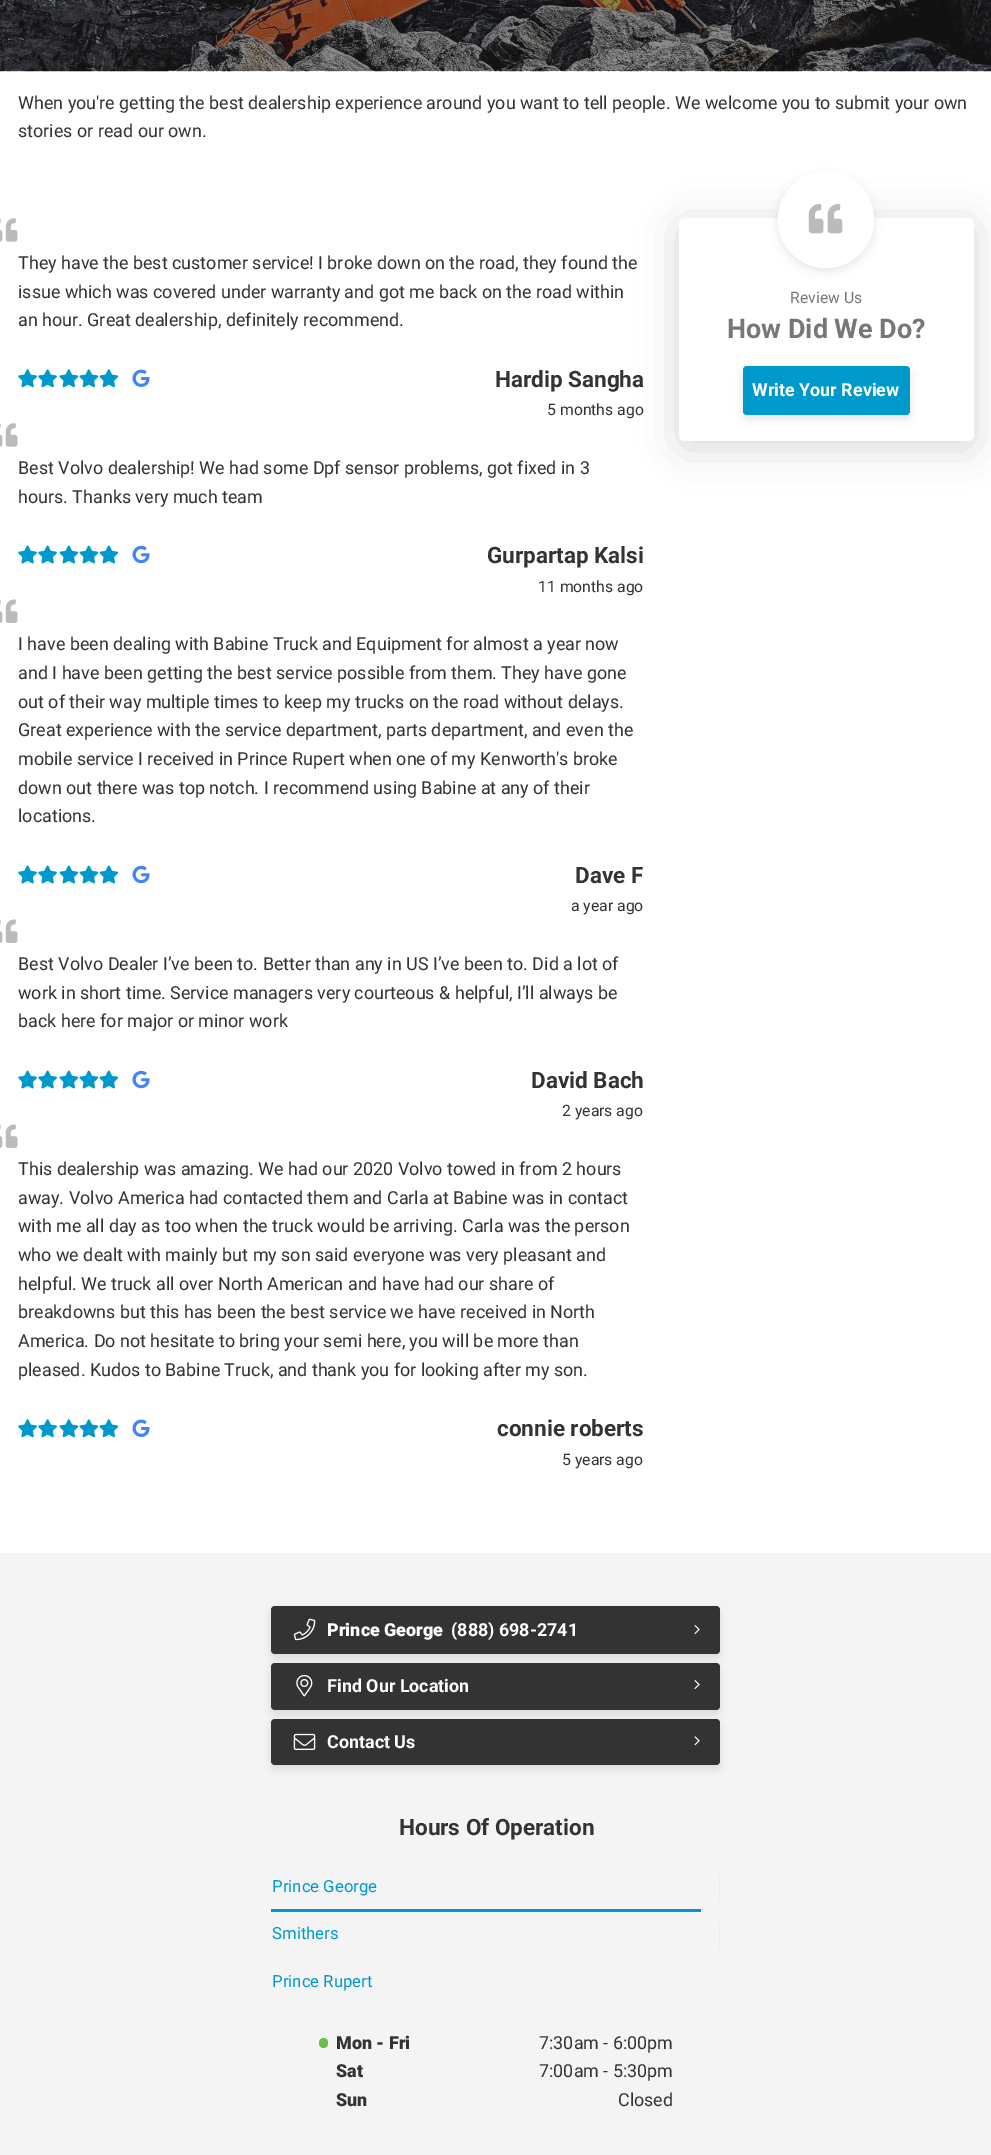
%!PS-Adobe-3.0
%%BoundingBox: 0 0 991 2155
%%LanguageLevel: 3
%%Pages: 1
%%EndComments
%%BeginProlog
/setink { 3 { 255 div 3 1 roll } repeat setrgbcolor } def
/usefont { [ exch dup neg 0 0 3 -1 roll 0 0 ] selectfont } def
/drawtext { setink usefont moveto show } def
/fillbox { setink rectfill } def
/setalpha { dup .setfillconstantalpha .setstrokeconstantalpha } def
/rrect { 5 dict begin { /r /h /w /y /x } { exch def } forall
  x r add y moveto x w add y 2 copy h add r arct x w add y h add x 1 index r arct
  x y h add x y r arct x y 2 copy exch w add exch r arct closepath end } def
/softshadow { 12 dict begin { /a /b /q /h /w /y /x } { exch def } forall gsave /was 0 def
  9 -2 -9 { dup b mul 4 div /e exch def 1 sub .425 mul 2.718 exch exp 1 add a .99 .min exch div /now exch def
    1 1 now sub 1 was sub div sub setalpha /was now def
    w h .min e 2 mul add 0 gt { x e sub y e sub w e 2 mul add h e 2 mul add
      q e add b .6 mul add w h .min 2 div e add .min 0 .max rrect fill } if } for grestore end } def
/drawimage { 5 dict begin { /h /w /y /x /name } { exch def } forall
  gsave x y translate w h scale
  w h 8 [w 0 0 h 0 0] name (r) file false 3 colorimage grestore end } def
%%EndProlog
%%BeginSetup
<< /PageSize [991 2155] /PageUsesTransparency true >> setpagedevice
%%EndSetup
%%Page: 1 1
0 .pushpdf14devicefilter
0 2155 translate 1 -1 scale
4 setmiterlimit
0 0 991 2155 255 255 255 fillbox
(assets/img1.rgb) 0 0 991 72 drawimage
(When you're getting the best dealership experience around you want to tell people. We welcome you to submit your own) 18 109 /Roboto-Regular 17.92 51 51 51 drawtext
(stories or read our own.) 18 137 /Roboto-Regular 17.92 51 51 51 drawtext
(assets/img2.rgb) 0 218 18 24 drawimage
(They have the best customer service! I broke down on the road, they found the) 18 269 /Roboto-Regular 17.92 51 51 51 drawtext
(issue which was covered under warranty and got me back on the road within) 18 298 /Roboto-Regular 17.92 51 51 51 drawtext
(an hour. Great dealership, definitely recommend.) 18 326 /Roboto-Regular 17.92 51 51 51 drawtext
(assets/img3.rgb) 18 369 19 19 drawimage
(assets/img3.rgb) 38 369 19 19 drawimage
(assets/img4.rgb) 59 369 20 19 drawimage
(assets/img4.rgb) 79 369 20 19 drawimage
(assets/img4.rgb) 99 369 20 19 drawimage
(assets/img5.rgb) 132 369 18 18 drawimage
(Hardip Sangha) 495 387 /Roboto-Bold 22.5 51 51 51 drawtext
(5 months ago) 547 415 /Roboto-Regular 15.75 51 51 51 drawtext
(assets/img2.rgb) 0 423 18 24 drawimage
(Best Volvo dealership! We had some Dpf sensor problems, got fixed in 3) 18 474 /Roboto-Regular 17.92 51 51 51 drawtext
(hours. Thanks very much team) 18 503 /Roboto-Regular 17.92 51 51 51 drawtext
(assets/img6.rgb) 18 545 19 19 drawimage
(assets/img6.rgb) 38 545 19 19 drawimage
(assets/img7.rgb) 59 545 20 19 drawimage
(assets/img7.rgb) 79 545 20 19 drawimage
(assets/img7.rgb) 99 545 20 19 drawimage
(assets/img8.rgb) 132 545 18 19 drawimage
(Gurpartap Kalsi) 487 563 /Roboto-Bold 22.5 51 51 51 drawtext
(11 months ago) 538 592 /Roboto-Regular 15.75 51 51 51 drawtext
(assets/img9.rgb) 0 599 18 24 drawimage
(I have been dealing with Babine Truck and Equipment for almost a year now) 18 650 /Roboto-Regular 17.92 51 51 51 drawtext
(and I have been getting the best service possible from them. They have gone) 18 679 /Roboto-Regular 17.92 51 51 51 drawtext
(out of their way multiple times to keep my trucks on the road without delays.) 18 708 /Roboto-Regular 17.92 51 51 51 drawtext
(Great experience with the service department, parts department, and even the) 18 736 /Roboto-Regular 17.92 51 51 51 drawtext
(mobile service I received in Prince Rupert when one of my Kenworth's broke) 18 765 /Roboto-Regular 17.92 51 51 51 drawtext
(down out there was top notch. I recommend using Babine at any of their) 18 794 /Roboto-Regular 17.92 51 51 51 drawtext
(locations.) 18 822 /Roboto-Regular 17.92 51 51 51 drawtext
(assets/img6.rgb) 18 865 19 19 drawimage
(assets/img6.rgb) 38 865 19 19 drawimage
(assets/img7.rgb) 59 865 20 19 drawimage
(assets/img7.rgb) 79 865 20 19 drawimage
(assets/img7.rgb) 99 865 20 19 drawimage
(assets/img8.rgb) 132 865 18 19 drawimage
(Dave F) 575 883 /Roboto-Bold 22.5 51 51 51 drawtext
(a year ago) 571 911 /Roboto-Regular 15.75 51 51 51 drawtext
(assets/img9.rgb) 0 919 18 24 drawimage
(Best Volvo Dealer I’ve been to. Better than any in US I’ve been to. Did a lot of) 18 970 /Roboto-Regular 17.92 51 51 51 drawtext
(work in short time. Service managers very courteous & helpful, I’ll always be) 18 999 /Roboto-Regular 17.92 51 51 51 drawtext
(back here for major or minor work) 18 1027 /Roboto-Regular 17.92 51 51 51 drawtext
(assets/img6.rgb) 18 1070 19 19 drawimage
(assets/img6.rgb) 38 1070 19 19 drawimage
(assets/img7.rgb) 59 1070 20 19 drawimage
(assets/img7.rgb) 79 1070 20 19 drawimage
(assets/img7.rgb) 99 1070 20 19 drawimage
(assets/img8.rgb) 132 1070 18 19 drawimage
(David Bach) 531 1088 /Roboto-Bold 22.5 51 51 51 drawtext
(2 years ago) 562 1116 /Roboto-Regular 15.75 51 51 51 drawtext
(assets/img9.rgb) 0 1124 18 24 drawimage
(This dealership was amazing. We had our 2020 Volvo towed in from 2 hours) 18 1175 /Roboto-Regular 17.92 51 51 51 drawtext
(away. Volvo America had contacted them and Carla at Babine was in contact) 18 1204 /Roboto-Regular 17.92 51 51 51 drawtext
(with me all day as too when the truck would be arriving. Carla was the person) 18 1232 /Roboto-Regular 17.92 51 51 51 drawtext
(who we dealt with mainly but my son said everyone was very pleasant and) 18 1261 /Roboto-Regular 17.92 51 51 51 drawtext
(helpful. We truck all over North American and have had our share of) 18 1290 /Roboto-Regular 17.92 51 51 51 drawtext
(breakdowns but this has been the best service we have received in North) 18 1318 /Roboto-Regular 17.92 51 51 51 drawtext
(America. Do not hesitate to bring your semi here, you will be more than) 18 1347 /Roboto-Regular 17.92 51 51 51 drawtext
(pleased. Kudos to Babine Truck, and thank you for looking after my son.) 18 1376 /Roboto-Regular 17.92 51 51 51 drawtext
(assets/img3.rgb) 18 1419 19 19 drawimage
(assets/img3.rgb) 38 1419 19 19 drawimage
(assets/img4.rgb) 59 1419 20 19 drawimage
(assets/img4.rgb) 79 1419 20 19 drawimage
(assets/img4.rgb) 99 1419 20 19 drawimage
(assets/img5.rgb) 132 1419 18 18 drawimage
(connie roberts) 497 1436 /Roboto-Bold 22.5 51 51 51 drawtext
(5 years ago) 562 1465 /Roboto-Regular 15.75 51 51 51 drawtext
0 0 0 setink
679 224 295 224 6 20 0.15 softshadow
255 255 255 setink
679 218 295 223 6 rrect fill
0 0 0 setink
778 175 96 96 48 4.5 0.1 softshadow
255 255 255 setink
778 171 96 97 48 rrect fill
(assets/img10.rgb) 808 204 35 30 drawimage
(Review Us) 790 303 /Roboto-Regular 15.75 119 119 119 drawtext
(How Did We Do?) 727 338 /Roboto-Bold 27 119 119 119 drawtext
0 0 0 setink
743 370 167 49 4 4.5 0.1 softshadow
0 153 204 setink
743 366 167 49 4 rrect fill
(Write Your Review) 752 396 /Roboto-Bold 17.92 255 255 255 drawtext
0 1553 991 602 244 244 244 fillbox
0 0 0 setink
271 1610 449 48 4 4.5 0.1 softshadow
51 51 51 setink
271 1606 449 48 4 rrect fill
(assets/img11.rgb) 293 1618 23 23 drawimage
(Prince George) 327 1636 /Roboto-Black 17.92 255 255 255 drawtext
(\(888\) 698-2741) 451 1636 /Roboto-Bold 17.92 255 255 255 drawtext
(assets/img12.rgb) 694 1625 6 9 drawimage
0 0 0 setink
271 1666 449 48 4 4.5 0.1 softshadow
51 51 51 setink
271 1663 449 47 4 rrect fill
(assets/img13.rgb) 296 1674 17 23 drawimage
(Find Our Location) 327 1692 /Roboto-Bold 17.92 255 255 255 drawtext
(assets/img12.rgb) 694 1680 6 9 drawimage
0 0 0 setink
271 1723 449 46 4 4.5 0.1 softshadow
51 51 51 setink
271 1719 449 46 4 rrect fill
(assets/img14.rgb) 293 1733 23 17 drawimage
(Contact Us) 327 1748 /Roboto-Bold 17.92 255 255 255 drawtext
(assets/img15.rgb) 694 1736 6 10 drawimage
(Hours Of Operation) 399 1835 /Roboto-Bold 22.5 51 51 51 drawtext
271 1909 430 3 0 153 204 fillbox
(Prince George) 272 1892 /Roboto-Regular 16.75 0 153 204 drawtext
719 1876 1 24 236 236 236 fillbox
(Smithers) 272 1939 /Roboto-Regular 16.75 0 153 204 drawtext
719 1924 1 24 236 236 236 fillbox
(Prince Rupert) 272 1987 /Roboto-Regular 16.75 0 153 204 drawtext
107 191 73 setink
319 2038 9 10 4.5 rrect fill
(Mon - Fri) 336 2049 /Roboto-Black 17.92 51 51 51 drawtext
(7:30am - 6:00pm) 539 2049 /Roboto-Regular 17.92 51 51 51 drawtext
(Sat) 336 2077 /Roboto-Black 17.92 51 51 51 drawtext
(7:00am - 5:30pm) 539 2077 /Roboto-Regular 17.92 51 51 51 drawtext
(Sun) 336 2106 /Roboto-Black 17.92 51 51 51 drawtext
(Closed) 618 2106 /Roboto-Regular 17.92 51 51 51 drawtext
.poppdf14devicefilter showpage
%%EOF
